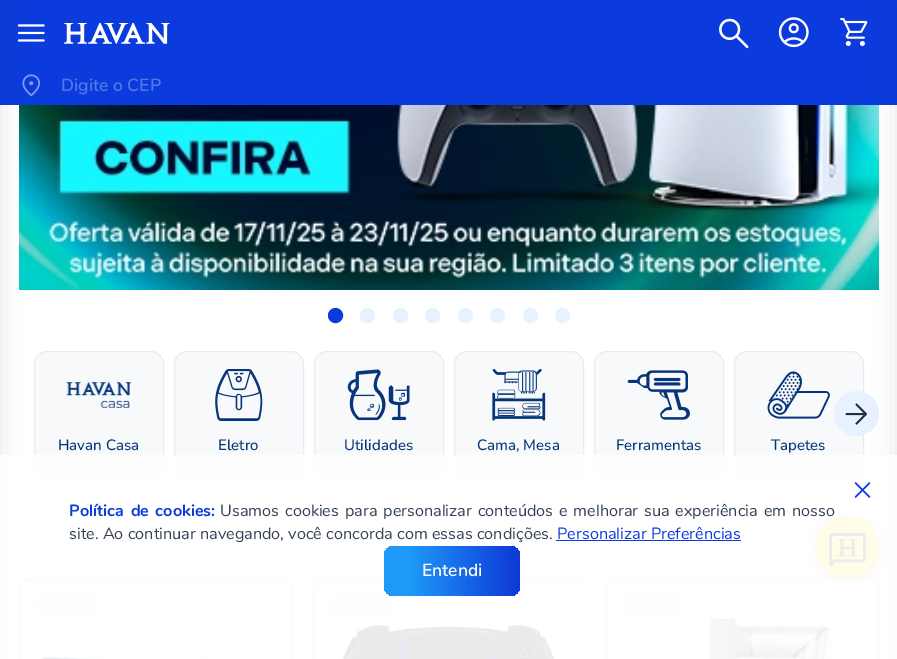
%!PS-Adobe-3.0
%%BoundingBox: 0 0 897 659
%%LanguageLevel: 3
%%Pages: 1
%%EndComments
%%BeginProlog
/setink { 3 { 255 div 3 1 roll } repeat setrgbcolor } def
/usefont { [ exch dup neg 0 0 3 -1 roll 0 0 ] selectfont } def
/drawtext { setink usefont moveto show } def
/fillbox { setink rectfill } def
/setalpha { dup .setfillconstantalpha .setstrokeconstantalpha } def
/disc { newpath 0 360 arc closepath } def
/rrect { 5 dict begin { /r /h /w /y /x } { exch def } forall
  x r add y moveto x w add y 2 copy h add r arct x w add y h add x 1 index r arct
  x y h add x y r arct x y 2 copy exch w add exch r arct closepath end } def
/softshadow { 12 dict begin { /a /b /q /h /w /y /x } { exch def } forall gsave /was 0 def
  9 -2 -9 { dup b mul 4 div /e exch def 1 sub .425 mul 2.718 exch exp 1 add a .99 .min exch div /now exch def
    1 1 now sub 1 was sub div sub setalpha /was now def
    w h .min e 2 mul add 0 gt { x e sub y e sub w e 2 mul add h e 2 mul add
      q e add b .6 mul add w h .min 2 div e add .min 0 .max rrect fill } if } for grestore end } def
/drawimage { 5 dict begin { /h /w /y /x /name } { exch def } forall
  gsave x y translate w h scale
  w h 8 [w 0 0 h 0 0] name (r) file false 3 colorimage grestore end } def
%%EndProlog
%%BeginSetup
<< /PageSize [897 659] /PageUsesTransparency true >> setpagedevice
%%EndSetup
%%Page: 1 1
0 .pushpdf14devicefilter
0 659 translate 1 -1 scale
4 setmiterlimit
0 0 897 659 255 255 255 fillbox
0 0 897 105 12 59 221 fillbox
(assets/img1.rgb) 17 24 28 18 drawimage
(assets/img6.rgb) 22 74 18 23 drawimage
(assets/img7.rgb) 19 105 860 185 drawimage
248 249 250 setink
34.5 351.5 129 129 12.5 rrect gsave fill grestore
233 236 239 setink
stroke
206 226 255 setink
2 setlinewidth
20 579 272 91 9 rrect stroke
233 249 230 setink
34 593 64 25 12.5 rrect fill
(assets/img15.rgb) 35 654 191 5 drawimage
0 0 0 setink
-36 0 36 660 0 12 0.1 softshadow
(assets/img2.rgb) 64 23 106 21 drawimage
(assets/img3.rgb) 719 18 30 31 drawimage
(assets/img4.rgb) 778 17 31 31 drawimage
(assets/img5.rgb) 840 18 28 28 drawimage
248 249 250 setink
734.5 351.5 129 129 12.5 rrect gsave fill grestore
233 236 239 setink
1 setlinewidth
stroke
232 241 255 setink
856.5 413.5 22.5 disc fill
(assets/img8.rgb) 845 403 22 22 drawimage
206 226 255 setink
2 setlinewidth
606 579 272 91 9 rrect stroke
0 0 0 setink
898 0 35 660 0 12 0.1 softshadow
(Digite o CEP) 61 91 /Nunito-SemiBold 17.5 85 118 231 drawtext
12 59 221 setink
335.5 315.5 7 disc gsave fill grestore
1 setlinewidth
stroke
232 241 255 setink
367.5 315.5 7 disc gsave fill grestore
stroke
400.5 315.5 7 disc gsave fill grestore
stroke
432.5 315.5 7 disc gsave fill grestore
stroke
465.5 315.5 7 disc gsave fill grestore
stroke
497.5 315.5 7 disc gsave fill grestore
stroke
530.5 315.5 7 disc gsave fill grestore
stroke
562.5 315.5 7 disc gsave fill grestore
stroke
(assets/img9.rgb) 66 382 65 26 drawimage
(Havan Casa) 58 450 /Nunito-Medium 15 6 53 122 drawtext
248 249 250 setink
174.5 351.5 129 129 12.5 rrect gsave fill grestore
233 236 239 setink
stroke
(assets/img10.rgb) 215 369 48 52 drawimage
(Eletro) 218 450 /Nunito-Medium 15 6 53 122 drawtext
248 249 250 setink
314.5 351.5 129 129 12.5 rrect gsave fill grestore
233 236 239 setink
stroke
(assets/img11.rgb) 347 369 63 52 drawimage
(Utilidades) 344 450 /Nunito-Medium 15 6 53 122 drawtext
248 249 250 setink
454.5 351.5 129 129 12.5 rrect gsave fill grestore
233 236 239 setink
stroke
(assets/img12.rgb) 492 369 54 52 drawimage
(Cama, Mesa) 477 450 /Nunito-Medium 15 6 53 122 drawtext
248 249 250 setink
594.5 351.5 129 129 12.5 rrect gsave fill grestore
233 236 239 setink
stroke
(assets/img13.rgb) 627 370 63 50 drawimage
(Ferramentas) 616 450 /Nunito-Medium 15 6 53 122 drawtext
(assets/img14.rgb) 767 371 63 48 drawimage
(Tapetes) 771 450 /Nunito-Medium 15 6 53 122 drawtext
206 226 255 setink
2 setlinewidth
314 579 270 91 9 rrect stroke
233 249 230 setink
328 593 63 25 12.5 rrect fill
(assets/img16.rgb) 341 624 215 35 drawimage
620 593 64 25 12.5 rrect fill
(assets/img17.rgb) 706 616 131 43 drawimage
0 0 0 setink
815 518 63 62 31 6 0.25 softshadow
255 225 22 setink
847.5 547.5 31.5 disc fill
(assets/img19.rgb) 829 533 37 34 drawimage
0.9 setalpha
0 455 897 204 255 255 255 fillbox
1 setalpha
(assets/img18.rgb) 854 482 17 16 drawimage
/Nunito-Bold 16.25 usefont
12 59 221 setink
69 516 moveto 2 0 32 (Política de cookies:) widthshow
/Nunito-Regular 16.25 usefont
51 65 86 setink
220 516 moveto 1.75 0 32 (Usamos cookies para personalizar conteúdos e melhorar sua experiência em nosso) widthshow
(site. Ao continuar navegando, você concorda com essas condições.) 69 539 /Nunito-Regular 16.25 51 65 86 drawtext
(Personalizar Preferências) 557 539 /Nunito-Regular 16.25 12 59 221 drawtext
556 540 185 1 12 59 221 fillbox
gsave 384 546 136 50 10 rrect clip newpath
<< /ShadingType 2 /ColorSpace /DeviceRGB /Coords [520 571 384 572] /Extend [true true] /Function << /FunctionType 3 /Domain [0 1] /Functions [<< /FunctionType 2 /Domain [0 1] /C0 [0.055 0.231 0.847] /C1 [0.055 0.231 0.847] /N 1 >> << /FunctionType 2 /Domain [0 1] /C0 [0.055 0.231 0.847] /C1 [0.118 0.6 0.969] /N 1 >> << /FunctionType 2 /Domain [0 1] /C0 [0.118 0.6 0.969] /C1 [0.118 0.6 0.969] /N 1 >>] /Bounds [0.03 0.81] /Encode [0 1 0 1 0 1] >> >> shfill grestore
(Entendi) 422 576 /Nunito-SemiBold 17.5 255 255 255 drawtext
.poppdf14devicefilter showpage
%%EOF
